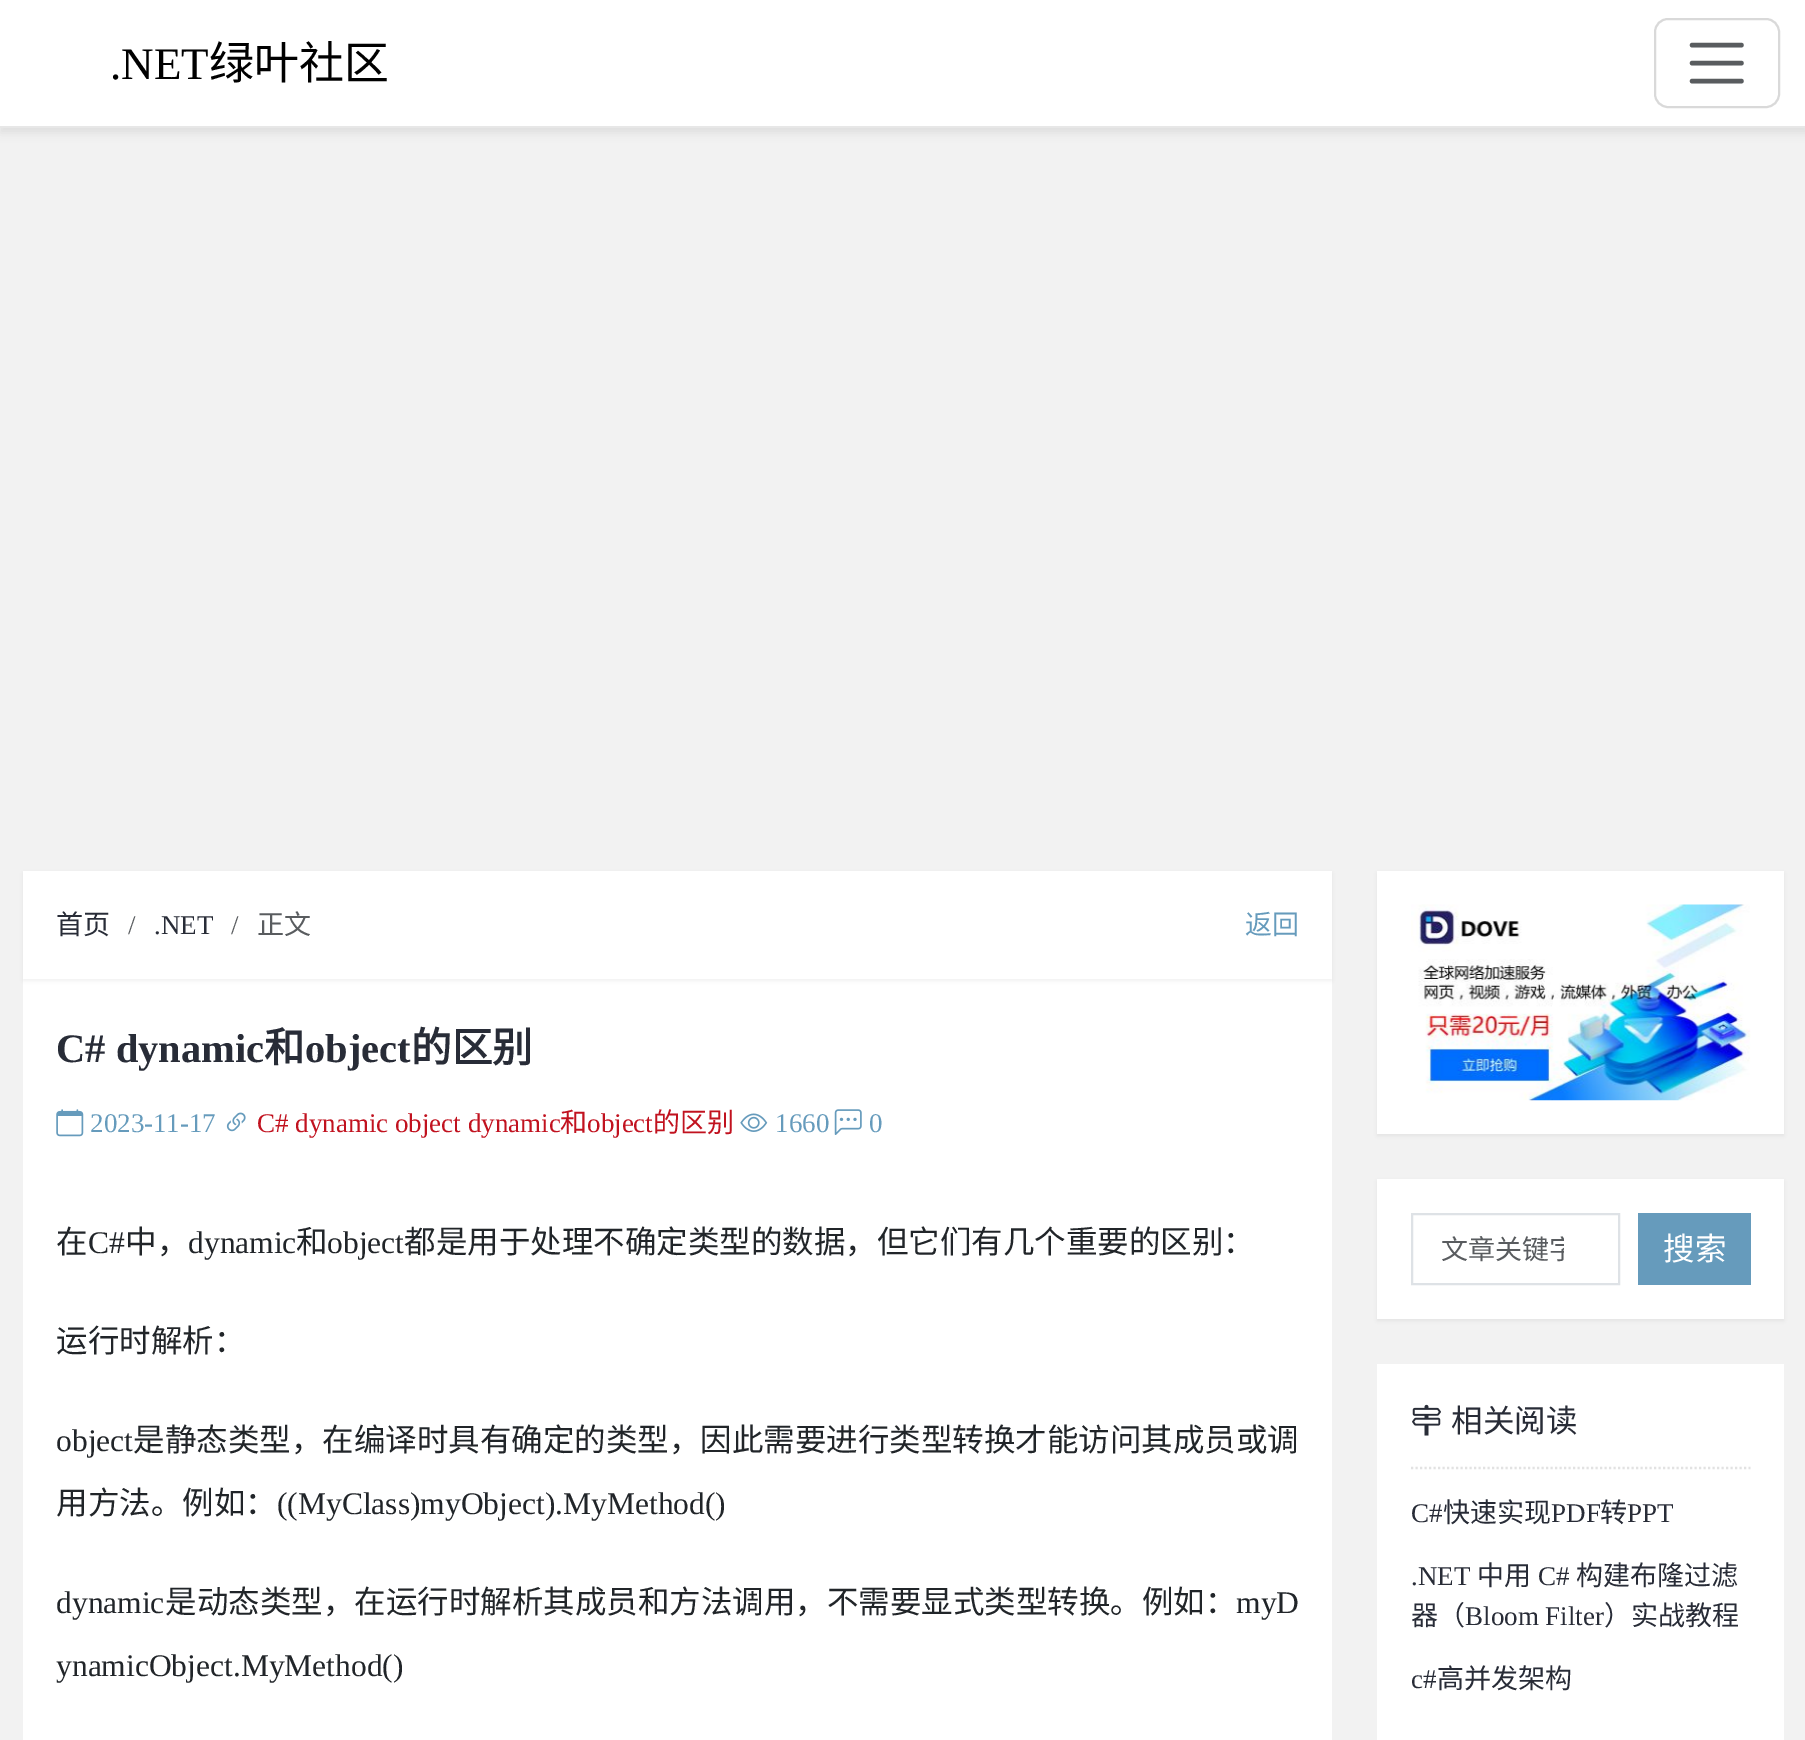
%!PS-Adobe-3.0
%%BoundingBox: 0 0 1805 1740
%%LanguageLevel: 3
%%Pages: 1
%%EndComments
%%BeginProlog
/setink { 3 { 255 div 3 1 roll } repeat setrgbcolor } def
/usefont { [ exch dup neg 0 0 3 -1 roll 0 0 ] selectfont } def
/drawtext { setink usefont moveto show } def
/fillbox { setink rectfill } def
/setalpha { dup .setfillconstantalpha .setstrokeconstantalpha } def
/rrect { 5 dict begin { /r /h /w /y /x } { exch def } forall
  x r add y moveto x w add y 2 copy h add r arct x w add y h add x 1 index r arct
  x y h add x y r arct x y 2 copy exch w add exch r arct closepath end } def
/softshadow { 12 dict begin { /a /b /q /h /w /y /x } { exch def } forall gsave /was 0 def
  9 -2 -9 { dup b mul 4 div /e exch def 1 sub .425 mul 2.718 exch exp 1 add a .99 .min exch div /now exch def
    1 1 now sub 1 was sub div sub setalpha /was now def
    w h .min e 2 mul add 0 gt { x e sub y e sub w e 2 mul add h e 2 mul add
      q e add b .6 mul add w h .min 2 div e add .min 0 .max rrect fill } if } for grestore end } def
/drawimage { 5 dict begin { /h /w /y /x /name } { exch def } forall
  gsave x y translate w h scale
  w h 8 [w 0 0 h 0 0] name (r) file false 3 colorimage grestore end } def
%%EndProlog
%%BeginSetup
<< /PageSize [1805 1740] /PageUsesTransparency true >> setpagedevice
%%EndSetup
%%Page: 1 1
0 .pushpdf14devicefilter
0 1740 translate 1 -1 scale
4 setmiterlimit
0 0 1805 1740 242 242 242 fillbox
0 0 0 setink
0 5 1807 128 0 4.5 0.07 softshadow
0 0 1805 126 255 255 255 fillbox
0 126 1805 2 231 231 231 fillbox
(.NET) 110 79 /LiberationSerif-Regular 45 0 0 0 drawtext
(绿叶社区) 209 79 /NotoSansCJKSC-Regular 45 0 0 0 drawtext
217 217 217 setink
2 setlinewidth
1655 19 124 88 13 rrect stroke
89 92 95 setink
4.5 setlinewidth
1 setlinecap
1692 45 moveto 1741.5 45 lineto 1692 63 moveto 1741.5 63 lineto 1692 81 moveto 1741.5 81 lineto stroke
23 979 1309 761 255 255 255 fillbox
0 0 0 setink
23 873 1309 108 0 2 0.05 softshadow
23 871 1309 108 255 255 255 fillbox
(首页) 56 934 /NotoSansCJKSC-Regular 27 40 44 55 drawtext
(/) 128 934 /LiberationSerif-Regular 27 89 92 95 drawtext
(.NET) 154 934 /LiberationSerif-Regular 27 40 44 55 drawtext
(/) 231 934 /LiberationSerif-Regular 27 89 92 95 drawtext
(正文) 257 934 /NotoSansCJKSC-Regular 27 89 92 95 drawtext
(返回) 1245 934 /NotoSansCJKSC-Regular 27 102 155 188 drawtext
(C# dynamic) 56 1062 /LiberationSerif-Bold 40.5 40 44 55 drawtext
(和) 264 1062 /NotoSansCJKSC-Bold 40.5 40 44 55 drawtext
(object) 305 1062 /LiberationSerif-Bold 40.5 40 44 55 drawtext
(的区别) 411 1062 /NotoSansCJKSC-Bold 40.5 40 44 55 drawtext
(assets/img1.rgb) 56 1109 28 28 drawimage
(2023-11-17) 90 1132 /LiberationSerif-Regular 27 102 155 188 drawtext
(assets/img2.rgb) 226 1112 20 20 drawimage
(C# dynamic object dynamic) 257 1132 /LiberationSerif-Regular 27 193 18 31 drawtext
(和) 560 1132 /NotoSansCJKSC-Regular 27 193 18 31 drawtext
(object) 587 1132 /LiberationSerif-Regular 27 193 18 31 drawtext
(的区别) 653 1132 /NotoSansCJKSC-Regular 27 193 18 31 drawtext
(assets/img3.rgb) 740 1113 28 19 drawimage
(1660) 775 1132 /LiberationSerif-Regular 27 102 155 188 drawtext
(assets/img4.rgb) 834 1109 28 26 drawimage
(0) 869 1132 /LiberationSerif-Regular 27 102 155 188 drawtext
(在) 56 1253 /NotoSansCJKSC-Regular 31.5 33 37 41 drawtext
(C#) 88 1253 /LiberationSerif-Regular 31.5 33 37 41 drawtext
(中，) 125 1253 /NotoSansCJKSC-Regular 31.5 33 37 41 drawtext
(dynamic) 188 1253 /LiberationSerif-Regular 31.5 33 37 41 drawtext
(和) 296 1253 /NotoSansCJKSC-Regular 31.5 33 37 41 drawtext
(object) 327 1253 /LiberationSerif-Regular 31.5 33 37 41 drawtext
(都是用于处理不确定类型的数据，但它们有几个重要的区别：) 404 1253 /NotoSansCJKSC-Regular 31.5 33 37 41 drawtext
(运行时解析：) 56 1352 /NotoSansCJKSC-Regular 31.5 33 37 41 drawtext
(object) 56 1451 /LiberationSerif-Regular 31.5 33 37 41 drawtext
(是静态类型，在编译时具有确定的类型，因此需要进行类型转换才能访问其成员或调) 133 1451 /NotoSansCJKSC-Regular 31.5 33 37 41 drawtext
(用方法。例如：) 56 1514 /NotoSansCJKSC-Regular 31.5 33 37 41 drawtext
(\(\(MyClass\)myObject\).MyMethod\(\)) 277 1514 /LiberationSerif-Regular 31.5 33 37 41 drawtext
(dynamic) 56 1613 /LiberationSerif-Regular 31.5 33 37 41 drawtext
(是动态类型，在运行时解析其成员和方法调用，不需要显式类型转换。例如：) 165 1613 /NotoSansCJKSC-Regular 31.5 33 37 41 drawtext
(myD) 1236 1613 /LiberationSerif-Regular 31.5 33 37 41 drawtext
(ynamicObject.MyMethod\(\)) 56 1676 /LiberationSerif-Regular 31.5 33 37 41 drawtext
0 0 0 setink
1377 873 407 263 0 2 0.05 softshadow
1377 871 407 263 255 255 255 fillbox
(assets/img5.rgb) 1411 904 340 197 drawimage
0 0 0 setink
1377 1181 407 140 0 2 0.05 softshadow
1377 1179 407 140 255 255 255 fillbox
222 226 230 setink
2 setlinewidth
0 setlinecap
1412 1214 207 70 rectstroke
gsave
1440 1226 124 41 rectclip
(文章关键字) 1441 1259 /NotoSansCJKSC-Regular 27 89 92 95 drawtext
grestore
1638 1213 113 72 102 155 188 fillbox
(搜索) 1663 1260 /NotoSansCJKSC-Regular 31.5 255 255 255 drawtext
1377 1364 407 376 255 255 255 fillbox
226 226 226 setink
2.2 setlinewidth
[2.25 2.25] 0 setdash
1411 1468 moveto 1750.5 1468 lineto stroke
(assets/img6.rgb) 1412 1404 29 32 drawimage
(相关阅读) 1451 1432 /NotoSansCJKSC-Regular 31.5 40 44 55 drawtext
(C#) 1411 1522 /LiberationSerif-Regular 27 40 44 55 drawtext
(快速实现) 1443 1522 /NotoSansCJKSC-Regular 27 40 44 55 drawtext
(PDF) 1551 1522 /LiberationSerif-Regular 27 40 44 55 drawtext
(转) 1600 1522 /NotoSansCJKSC-Regular 27 40 44 55 drawtext
(PPT) 1627 1522 /LiberationSerif-Regular 27 40 44 55 drawtext
(.NET) 1411 1585 /LiberationSerif-Regular 27 40 44 55 drawtext
(中用) 1477 1585 /NotoSansCJKSC-Regular 27 40 44 55 drawtext
(C#) 1538 1585 /LiberationSerif-Regular 27 40 44 55 drawtext
(构建布隆过滤) 1576 1585 /NotoSansCJKSC-Regular 27 40 44 55 drawtext
(器（) 1411 1625 /NotoSansCJKSC-Regular 27 40 44 55 drawtext
(Bloom Filter) 1465 1625 /LiberationSerif-Regular 27 40 44 55 drawtext
(）实战教程) 1604 1625 /NotoSansCJKSC-Regular 27 40 44 55 drawtext
(c#) 1411 1688 /LiberationSerif-Regular 27 40 44 55 drawtext
(高并发架构) 1437 1688 /NotoSansCJKSC-Regular 27 40 44 55 drawtext
.poppdf14devicefilter showpage
%%EOF
